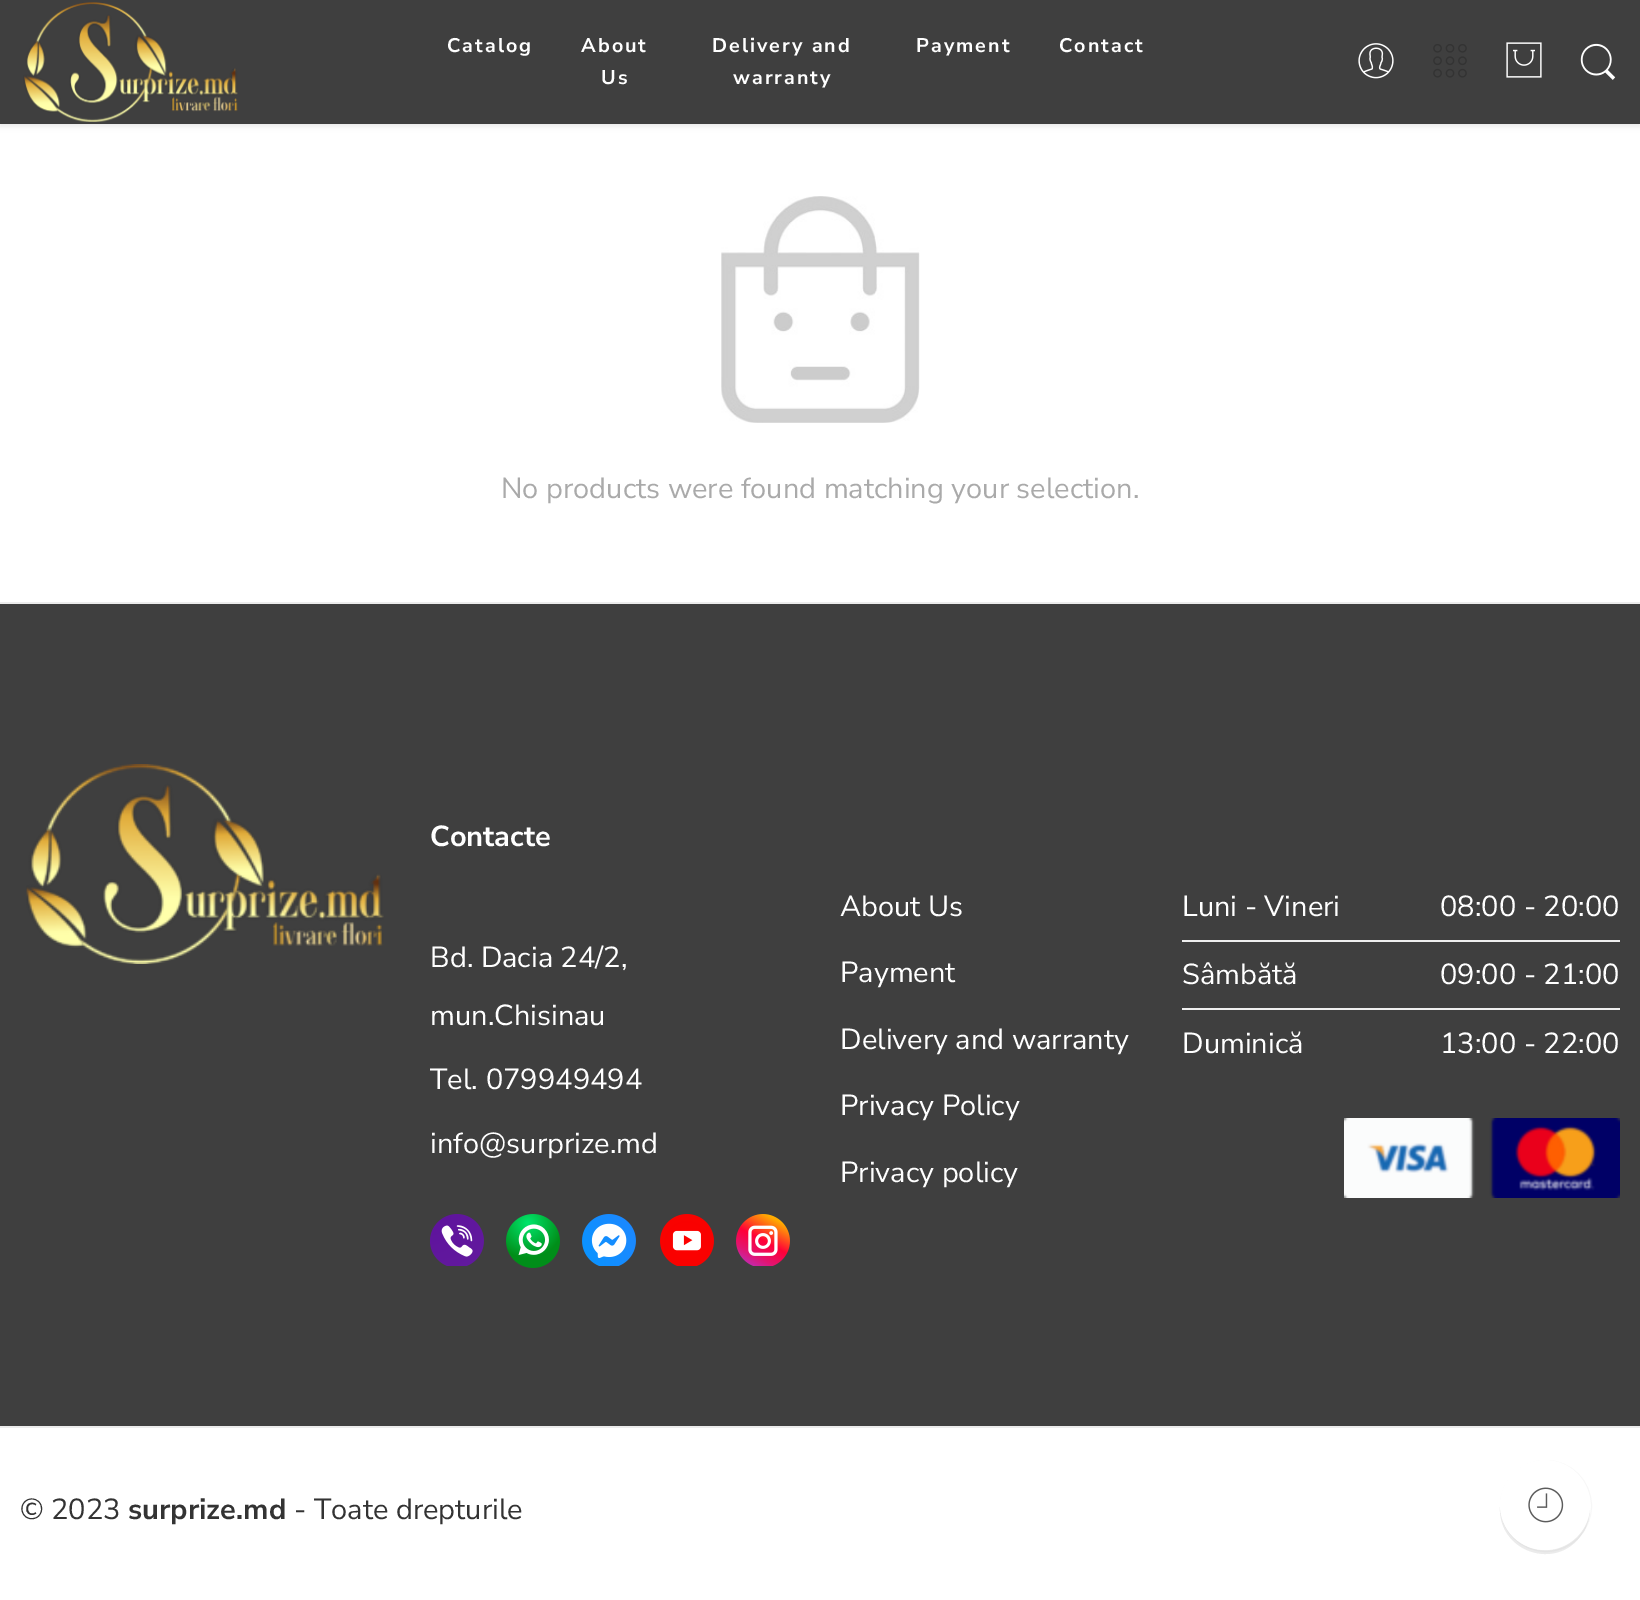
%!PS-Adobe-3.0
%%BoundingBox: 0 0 1640 1600
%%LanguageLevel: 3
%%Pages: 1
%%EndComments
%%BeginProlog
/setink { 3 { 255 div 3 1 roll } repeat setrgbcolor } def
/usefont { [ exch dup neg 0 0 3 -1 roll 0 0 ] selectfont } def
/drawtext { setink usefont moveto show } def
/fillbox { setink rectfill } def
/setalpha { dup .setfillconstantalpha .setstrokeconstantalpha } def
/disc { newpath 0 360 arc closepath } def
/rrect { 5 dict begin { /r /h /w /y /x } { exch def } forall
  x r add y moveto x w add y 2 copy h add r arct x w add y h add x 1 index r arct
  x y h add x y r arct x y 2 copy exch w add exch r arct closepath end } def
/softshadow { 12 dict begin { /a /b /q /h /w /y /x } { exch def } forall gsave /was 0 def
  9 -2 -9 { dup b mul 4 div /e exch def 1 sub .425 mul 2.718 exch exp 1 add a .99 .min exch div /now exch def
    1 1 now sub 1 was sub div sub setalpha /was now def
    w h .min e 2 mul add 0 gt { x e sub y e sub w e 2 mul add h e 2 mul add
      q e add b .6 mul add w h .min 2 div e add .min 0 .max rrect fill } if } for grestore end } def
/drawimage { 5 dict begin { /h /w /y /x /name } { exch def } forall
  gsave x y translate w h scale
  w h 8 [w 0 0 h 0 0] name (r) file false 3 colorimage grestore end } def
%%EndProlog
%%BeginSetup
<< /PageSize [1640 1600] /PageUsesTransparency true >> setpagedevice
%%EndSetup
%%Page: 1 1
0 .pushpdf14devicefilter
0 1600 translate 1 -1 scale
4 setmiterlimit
0 0 1640 1600 255 255 255 fillbox
0 0 0 setink
0 2 1640 124 0 3 0.1 softshadow
0 0 1640 124 63 63 63 fillbox
(assets/img1.rgb) 23 2 215 120 drawimage
/NunitoSans-Bold 19.75 usefont
255 255 255 setink
447 52 moveto 2 0 (Catalog) ashow
581 52 moveto 2 0 (About) ashow
601 84 moveto 2 0 (Us) ashow
712 52 moveto 2 0 (Delivery and) ashow
733 84 moveto 2 0 (warranty) ashow
916 52 moveto 2 0 (Payment) ashow
1059 52 moveto 2 0 (Contact) ashow
(assets/img2.rgb) 1358 43 36 36 drawimage
(assets/img3.rgb) 1433 44 34 34 drawimage
(assets/img4.rgb) 1506 42 36 36 drawimage
(assets/img5.rgb) 1580 43 36 37 drawimage
(assets/img6.rgb) 721 196 199 227 drawimage
(No products were found matching your selection.) 501 498 /NunitoSans-Regular 29 170 170 170 drawtext
0 604 1640 822 63 63 63 fillbox
0 602 1640 2 236 236 236 fillbox
(assets/img7.rgb) 26 764 358 200 drawimage
(Contacte) 430 846 /NunitoSans-Bold 29 255 255 255 drawtext
(Bd. Dacia 24/2,) 430 967 /NunitoSans-Regular 29 255 255 255 drawtext
(mun.Chisinau) 430 1025 /NunitoSans-Regular 29 255 255 255 drawtext
(Tel. 079949494) 430 1089 /NunitoSans-Regular 29 255 255 255 drawtext
(info@surprize.md) 430 1153 /NunitoSans-Regular 29 255 255 255 drawtext
(assets/img8.rgb) 430 1214 54 52 drawimage
(assets/img9.rgb) 506 1214 54 54 drawimage
(assets/img10.rgb) 582 1214 54 52 drawimage
(assets/img11.rgb) 660 1214 54 52 drawimage
(assets/img12.rgb) 736 1214 54 52 drawimage
(About Us) 840 916 /NunitoSans-Regular 29 255 255 255 drawtext
(Payment) 840 982 /NunitoSans-Regular 29 255 255 255 drawtext
(Delivery and warranty) 840 1049 /NunitoSans-Regular 29 255 255 255 drawtext
(Privacy Policy) 840 1115 /NunitoSans-Regular 29 255 255 255 drawtext
(Privacy policy) 840 1182 /NunitoSans-Regular 29 255 255 255 drawtext
1182 940 438 2 239 239 239 fillbox
(Luni - Vineri) 1182 916 /NunitoSans-Regular 29 255 255 255 drawtext
(08:00 - 20:00) 1440 916 /NunitoSans-Regular 29 255 255 255 drawtext
1182 1008 438 2 239 239 239 fillbox
(Sâmbătă) 1182 984 /NunitoSans-Regular 29 255 255 255 drawtext
(09:00 - 21:00) 1440 984 /NunitoSans-Regular 29 255 255 255 drawtext
(Duminică) 1182 1053 /NunitoSans-Regular 29 255 255 255 drawtext
(13:00 - 22:00) 1440 1053 /NunitoSans-Regular 29 255 255 255 drawtext
(assets/img13.rgb) 1344 1118 276 80 drawimage
0 1426 1640 2 236 236 236 fillbox
(© 2023) 20 1519 /NunitoSans-Regular 29 51 51 51 drawtext
(surprize.md) 128 1519 /NunitoSans-Bold 29 51 51 51 drawtext
(- Toate drepturile) 294 1519 /NunitoSans-Regular 29 51 51 51 drawtext
247 247 247 setink
1546 1506 45.5 disc stroke
0.08 setalpha
0 0 0 setink
1500 1507 moveto 1498 1552 1557 1572 1582 1534 curveto 1588 1526 1590 1517 1590 1507 curveto 1589 1531 1569 1550 1545 1550 curveto 1521 1550 1501 1531 1500 1507 curveto closepath fill
1 setalpha
255 255 255 setink
1545 1505 45 disc fill
(assets/img14.rgb) 1528 1487 36 36 drawimage
.poppdf14devicefilter showpage
%%EOF
